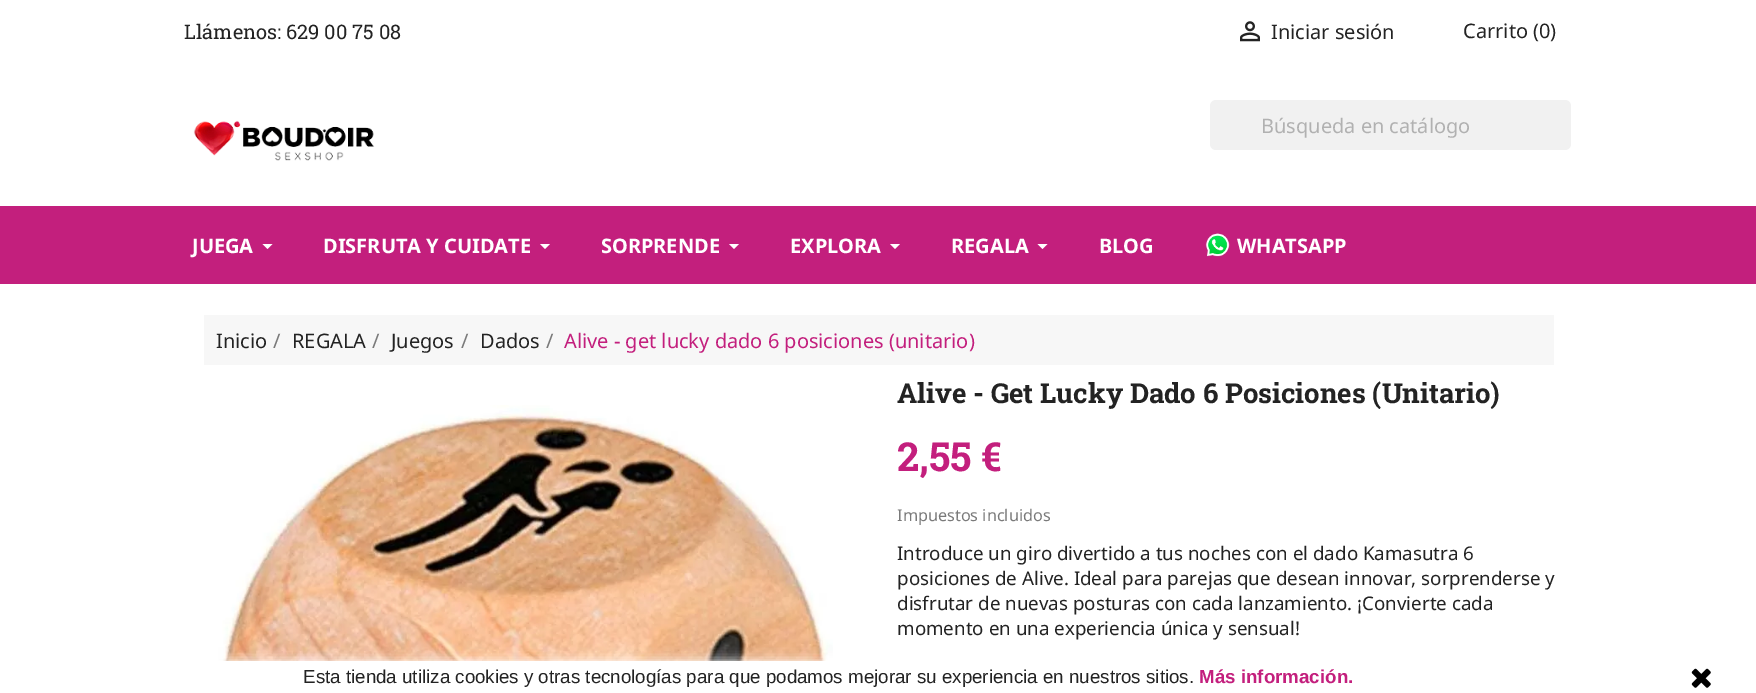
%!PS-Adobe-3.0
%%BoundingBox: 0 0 1756 693
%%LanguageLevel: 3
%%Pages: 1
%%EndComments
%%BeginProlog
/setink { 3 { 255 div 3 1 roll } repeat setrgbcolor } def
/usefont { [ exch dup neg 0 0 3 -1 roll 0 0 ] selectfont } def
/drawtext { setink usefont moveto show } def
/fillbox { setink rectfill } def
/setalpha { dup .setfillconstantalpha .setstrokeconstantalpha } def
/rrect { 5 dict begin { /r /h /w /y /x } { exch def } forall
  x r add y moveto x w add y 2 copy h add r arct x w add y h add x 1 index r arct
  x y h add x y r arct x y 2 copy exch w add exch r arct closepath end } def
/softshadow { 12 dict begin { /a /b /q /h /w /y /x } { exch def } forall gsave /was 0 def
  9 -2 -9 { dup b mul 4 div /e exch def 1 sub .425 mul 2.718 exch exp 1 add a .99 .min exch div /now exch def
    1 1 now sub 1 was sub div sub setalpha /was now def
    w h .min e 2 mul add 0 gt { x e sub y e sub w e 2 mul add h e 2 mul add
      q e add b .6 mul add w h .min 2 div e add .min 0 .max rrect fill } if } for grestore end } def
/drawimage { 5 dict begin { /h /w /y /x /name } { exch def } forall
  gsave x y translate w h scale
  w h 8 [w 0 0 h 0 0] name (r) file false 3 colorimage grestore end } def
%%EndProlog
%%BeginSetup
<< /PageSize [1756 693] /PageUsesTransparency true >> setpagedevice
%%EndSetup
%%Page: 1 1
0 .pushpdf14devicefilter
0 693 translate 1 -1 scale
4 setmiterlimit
0 0 1756 693 255 255 255 fillbox
(Llámenos: 629 00 75 08) 184 39 /RobotoSlab-Regular 20 35 35 35 drawtext
(assets/img1.rgb) 1240 21 20 21 drawimage
(Iniciar sesión) 1271 39 /NotoSans-Regular 20 35 35 35 drawtext
(Carrito \(0\)) 1463 38 /NotoSans-Regular 20 35 35 35 drawtext
(assets/img2.rgb) 193 120 182 41 drawimage
241 241 241 setink
1210 100 361 50 6 rrect fill
(Búsqueda en catálogo) 1261 133 /NotoSans-Regular 20 177 177 177 drawtext
0 206 1756 78 195 31 125 fillbox
(JUEGA) 192 253 /NotoSans-Bold 20 255 255 255 drawtext
262.5 244 moveto 272.5 244 lineto 267.5 249 lineto closepath fill
(DISFRUTA Y CUIDATE) 323 253 /NotoSans-Bold 20 255 255 255 drawtext
540 244 moveto 550 244 lineto 545 249 lineto closepath fill
(SORPRENDE) 601 253 /NotoSans-Bold 20 255 255 255 drawtext
729 244 moveto 739 244 lineto 734 249 lineto closepath fill
(EXPLORA) 790 253 /NotoSans-Bold 20 255 255 255 drawtext
890 244 moveto 900 244 lineto 895 249 lineto closepath fill
(REGALA) 951 253 /NotoSans-Bold 20 255 255 255 drawtext
1037.5 244 moveto 1047.5 244 lineto 1042.5 249 lineto closepath fill
(BLOG) 1099 253 /NotoSans-Bold 20 255 255 255 drawtext
(assets/img3.rgb) 1205 233 25 24 drawimage
(WHATSAPP) 1237 253 /NotoSans-Bold 20 255 255 255 drawtext
204 315 1350 50 247 247 247 fillbox
(Inicio) 216 348 /NotoSans-Regular 20 35 35 35 drawtext
(/) 273 348 /NotoSans-Regular 20 122 122 122 drawtext
(REGALA) 292 348 /NotoSans-Regular 20 35 35 35 drawtext
(/) 372 348 /NotoSans-Regular 20 122 122 122 drawtext
(Juegos) 391 348 /NotoSans-Regular 20 35 35 35 drawtext
(/) 461 348 /NotoSans-Regular 20 122 122 122 drawtext
(Dados) 480 348 /NotoSans-Regular 20 35 35 35 drawtext
(/) 546 348 /NotoSans-Regular 20 122 122 122 drawtext
(Alive - get lucky dado 6 posiciones \(unitario\)) 564 348 /NotoSans-Regular 20 195 31 125 drawtext
(assets/img4.rgb) 216 405 617 256 drawimage
(Alive - Get Lucky Dado 6 Posiciones \(Unitario\)) 897 403 /RobotoSlab-Bold 27.5 35 35 35 drawtext
(2,55 €) 897 471 /RobotoSlab-Bold 40 195 31 125 drawtext
(Impuestos incluidos) 897 521 /NotoSans-Regular 16.25 122 122 122 drawtext
(Introduce un giro divertido a tus noches con el dado Kamasutra 6) 897 560 /NotoSans-Regular 18.75 35 35 35 drawtext
(posiciones de Alive. Ideal para parejas que desean innovar, sorprenderse y) 897 585 /NotoSans-Regular 18.75 35 35 35 drawtext
(disfrutar de nuevas posturas con cada lanzamiento. ¡Convierte cada) 897 610 /NotoSans-Regular 18.75 35 35 35 drawtext
(momento en una experiencia única y sensual!) 897 635 /NotoSans-Regular 18.75 35 35 35 drawtext
255 255 255 setink
0 661 1756 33 0 6 1 softshadow
(Esta tienda utiliza cookies y otras tecnologías para que podamos mejorar su experiencia en nuestros sitios.) 303 683 /LiberationSans-Regular 18.75 35 35 35 drawtext
(Más información.) 1199 683 /LiberationSans-Bold 18.75 195 31 125 drawtext
(assets/img5.rgb) 1691 668 20 20 drawimage
.poppdf14devicefilter showpage
%%EOF
